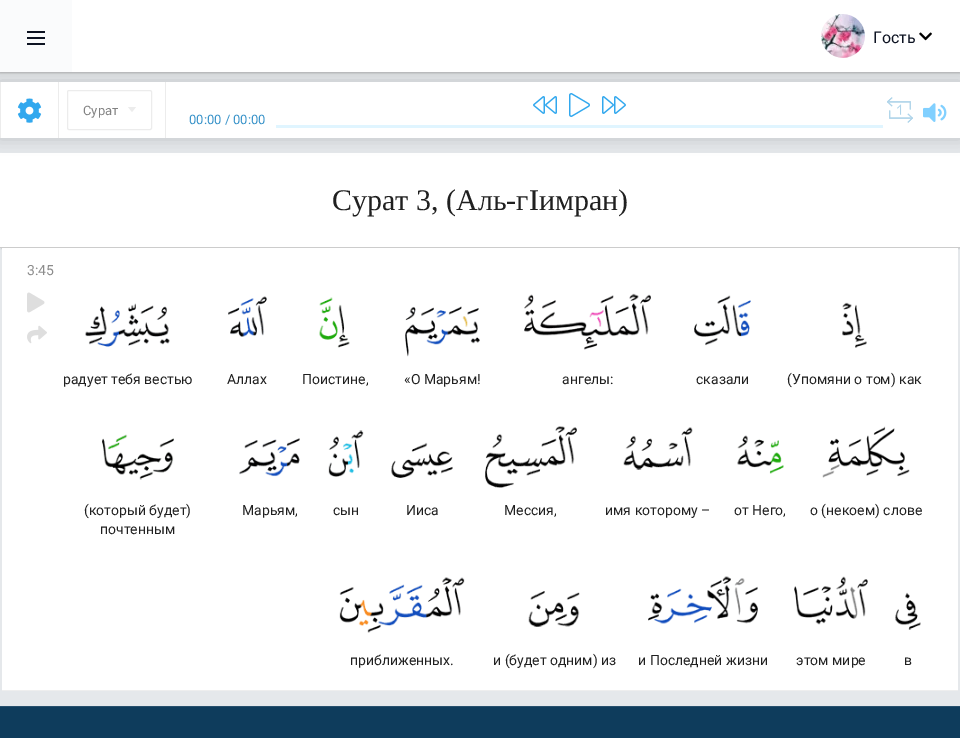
%!PS-Adobe-3.0
%%BoundingBox: 0 0 960 738
%%LanguageLevel: 3
%%Pages: 1
%%EndComments
%%BeginProlog
/setink { 3 { 255 div 3 1 roll } repeat setrgbcolor } def
/usefont { [ exch dup neg 0 0 3 -1 roll 0 0 ] selectfont } def
/drawtext { setink usefont moveto show } def
/fillbox { setink rectfill } def
/setalpha { dup .setfillconstantalpha .setstrokeconstantalpha } def
/rrect { 5 dict begin { /r /h /w /y /x } { exch def } forall
  x r add y moveto x w add y 2 copy h add r arct x w add y h add x 1 index r arct
  x y h add x y r arct x y 2 copy exch w add exch r arct closepath end } def
/softshadow { 12 dict begin { /a /b /q /h /w /y /x } { exch def } forall gsave /was 0 def
  9 -2 -9 { dup b mul 4 div /e exch def 1 sub .425 mul 2.718 exch exp 1 add a .99 .min exch div /now exch def
    1 1 now sub 1 was sub div sub setalpha /was now def
    w h .min e 2 mul add 0 gt { x e sub y e sub w e 2 mul add h e 2 mul add
      q e add b .6 mul add w h .min 2 div e add .min 0 .max rrect fill } if } for grestore end } def
/drawimage { 5 dict begin { /h /w /y /x /name } { exch def } forall
  gsave x y translate w h scale
  w h 8 [w 0 0 h 0 0] name (r) file false 3 colorimage grestore end } def
%%EndProlog
%%BeginSetup
<< /PageSize [960 738] /PageUsesTransparency true >> setpagedevice
%%EndSetup
%%Page: 1 1
0 .pushpdf14devicefilter
0 738 translate 1 -1 scale
4 setmiterlimit
0 0 960 738 229 232 235 fillbox
0 0 0 setink
0 1 960 72 0 1 0.2 softshadow
170 170 170 setink
0 1 960 72 0 2 0.5 softshadow
0 0 0 setink
1 154 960 95 0 0.5 0.1 softshadow
0 153 960 94 255 255 255 fillbox
0 0 0 setink
-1 81 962 58 0 7.5 0.15 softshadow
72 0 888 72 255 255 255 fillbox
0 0 72 72 250 251 252 fillbox
27 31 18 2 13 19 34 fillbox
27 37 18 2 13 19 34 fillbox
27 43 18 2 13 19 34 fillbox
(assets/img1.rgb) 821 14 44 44 drawimage
(Гость) 873 43 /Roboto-Regular 16 13 19 34 drawtext
(assets/img2.rgb) 919 32 13 9 drawimage
1 82 959 56 255 255 255 fillbox
58 82 1 56 236 236 236 fillbox
0 82 1 56 236 236 236 fillbox
(assets/img3.rgb) 17 98 25 25 drawimage
67.5 90.5 84 39 1.5 rrect stroke
(Сурат) 83 115 /Roboto-Regular 13 130 130 130 drawtext
236 236 236 setink
128 107 moveto 136 107 lineto 132 112 lineto closepath fill
165 82 1 56 236 236 236 fillbox
(00:00 / 00:00) 189 124 /Roboto-Regular 13 57 147 201 drawtext
(assets/img4.rgb) 533 96 24 18 drawimage
(assets/img5.rgb) 569 93 21 24 drawimage
(assets/img6.rgb) 602 96 24 18 drawimage
276 125 607 3 224 245 255 fillbox
(assets/img7.rgb) 887 97 26 26 drawimage
(assets/img8.rgb) 923 103 24 19 drawimage
0 247 960 1 204 204 204 fillbox
(Сурат 3, \(Аль-гIимран\)) 332 210 /LiberationSerif-Regular 30 32 32 32 drawtext
2 248 956 442 255 255 255 fillbox
2 690 956 1 238 238 238 fillbox
(3:45) 27 275 /Roboto-Regular 14 140 140 140 drawtext
(assets/img9.rgb) 27 292 18 21 drawimage
(assets/img10.rgb) 27 325 20 19 drawimage
(assets/img11.rgb) 85 303 85 44 drawimage
(радует тебя вестью) 63 384 /Roboto-Regular 14 32 32 32 drawtext
(assets/img12.rgb) 228 296 39 41 drawimage
(Аллах) 227 384 /Roboto-Regular 14 32 32 32 drawtext
(assets/img13.rgb) 319 297 31 51 drawimage
(Поистине,) 302 384 /Roboto-Regular 14 32 32 32 drawtext
(assets/img14.rgb) 405 306 75 51 drawimage
(«О Марьям!) 404 384 /Roboto-Regular 14 32 32 32 drawtext
(assets/img15.rgb) 524 293 127 57 drawimage
(ангелы:) 562 384 /Roboto-Regular 14 32 32 32 drawtext
(assets/img16.rgb) 694 295 57 51 drawimage
(сказали) 696 384 /Roboto-Regular 14 32 32 32 drawtext
(assets/img17.rgb) 842 302 25 46 drawimage
(\(Упомяни о том\) как) 787 384 /Roboto-Regular 14 32 32 32 drawtext
(assets/img18.rgb) 102 434 72 46 drawimage
(\(который будет\)) 84 515 /Roboto-Regular 14 32 32 32 drawtext
(почтенным) 100 534 /Roboto-Regular 14 32 32 32 drawtext
(assets/img19.rgb) 239 438 61 39 drawimage
(Марьям,) 242 515 /Roboto-Regular 14 32 32 32 drawtext
(assets/img20.rgb) 328 430 36 47 drawimage
(сын) 333 515 /Roboto-Regular 14 32 32 32 drawtext
(assets/img21.rgb) 391 442 62 36 drawimage
(Ииса) 406 515 /Roboto-Regular 14 32 32 32 drawtext
(assets/img22.rgb) 485 426 92 62 drawimage
(Мессия,) 504 515 /Roboto-Regular 14 32 32 32 drawtext
(assets/img23.rgb) 623 427 70 43 drawimage
(имя которому –) 605 515 /Roboto-Regular 14 32 32 32 drawtext
(assets/img24.rgb) 737 435 47 39 drawimage
(от Него,) 734 515 /Roboto-Regular 14 32 32 32 drawtext
(assets/img25.rgb) 822 426 88 52 drawimage
(о \(некоем\) слове) 810 515 /Roboto-Regular 14 32 32 32 drawtext
(assets/img26.rgb) 339 577 126 56 drawimage
(приближенных.) 350 665 /Roboto-Regular 14 32 32 32 drawtext
(assets/img27.rgb) 528 591 52 36 drawimage
(и \(будет одним\) из) 493 665 /Roboto-Regular 14 32 32 32 drawtext
(assets/img28.rgb) 648 576 110 48 drawimage
(и Последней жизни) 638 665 /Roboto-Regular 14 32 32 32 drawtext
(assets/img29.rgb) 794 576 74 49 drawimage
(этом мире) 796 665 /Roboto-Regular 14 32 32 32 drawtext
(assets/img30.rgb) 895 592 26 38 drawimage
(в) 904 665 /Roboto-Regular 14 32 32 32 drawtext
0 707 960 31 14 60 92 fillbox
0 706 960 1 39 80 109 fillbox
.poppdf14devicefilter showpage
%%EOF
